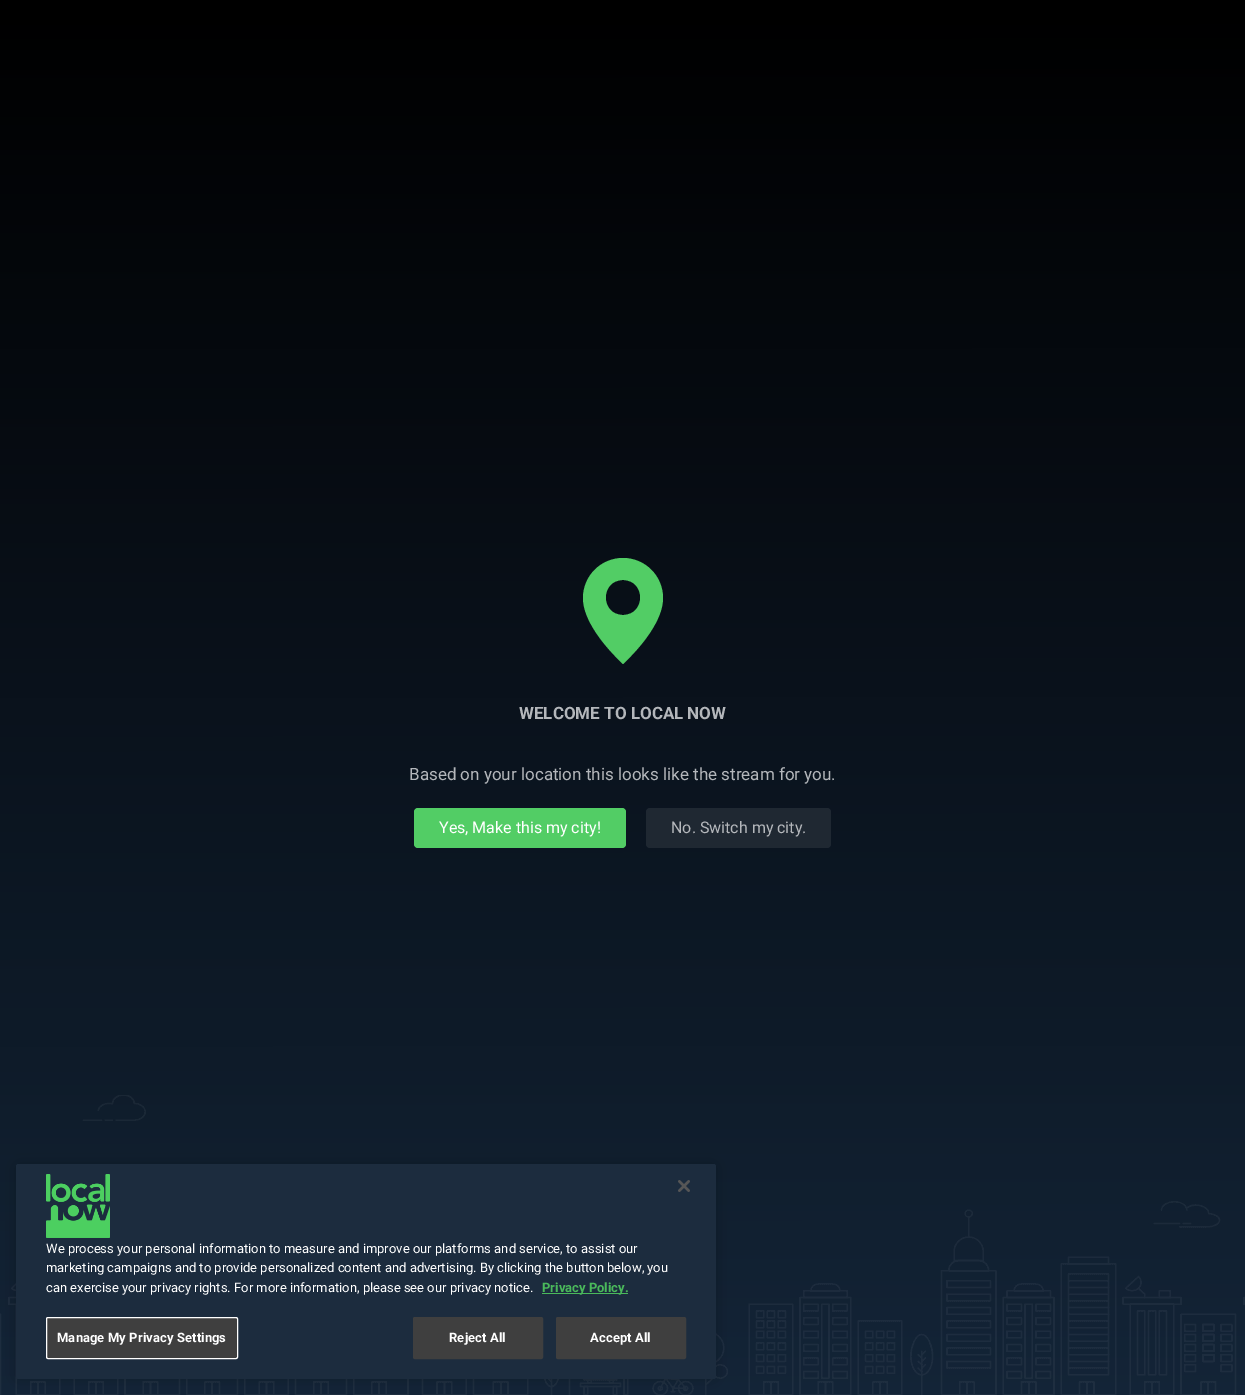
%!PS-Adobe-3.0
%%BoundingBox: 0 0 1245 1395
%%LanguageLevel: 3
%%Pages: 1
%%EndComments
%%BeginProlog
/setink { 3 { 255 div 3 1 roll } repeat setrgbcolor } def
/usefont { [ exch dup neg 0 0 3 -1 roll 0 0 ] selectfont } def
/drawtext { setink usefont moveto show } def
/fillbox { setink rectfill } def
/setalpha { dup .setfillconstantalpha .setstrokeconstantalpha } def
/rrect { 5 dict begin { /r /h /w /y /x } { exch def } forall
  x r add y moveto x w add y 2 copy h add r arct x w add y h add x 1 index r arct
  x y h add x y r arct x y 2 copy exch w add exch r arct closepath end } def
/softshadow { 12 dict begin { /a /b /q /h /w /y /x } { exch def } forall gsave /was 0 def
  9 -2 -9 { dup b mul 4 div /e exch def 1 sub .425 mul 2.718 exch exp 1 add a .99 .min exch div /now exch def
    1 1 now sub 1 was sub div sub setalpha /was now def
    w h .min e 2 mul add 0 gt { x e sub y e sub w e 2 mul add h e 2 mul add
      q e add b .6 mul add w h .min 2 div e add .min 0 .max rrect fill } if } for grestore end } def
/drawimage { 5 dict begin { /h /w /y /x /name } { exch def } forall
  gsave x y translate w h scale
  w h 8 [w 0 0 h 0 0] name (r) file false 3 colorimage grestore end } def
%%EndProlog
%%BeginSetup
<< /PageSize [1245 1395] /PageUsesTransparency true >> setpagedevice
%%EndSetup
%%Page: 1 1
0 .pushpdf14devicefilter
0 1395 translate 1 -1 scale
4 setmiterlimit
0 0 1245 1395 255 255 255 fillbox
gsave 0 0 moveto 1245 0 lineto 1245 1395 lineto 0 1395 lineto closepath clip newpath
<< /ShadingType 2 /ColorSpace /DeviceRGB /Coords [622 0 623 1395] /Extend [true true] /Function << /FunctionType 2 /Domain [0 1] /C0 [0 0 0] /C1 [0.075 0.141 0.216] /N 1 >> >> shfill grestore
82 205 101 setink
623 558 moveto 601 558 583 576 583 598 curveto 583 620 604 646 623 664 curveto 642 646 663 620 663 598 curveto 663 576 645 558 623 558 curveto closepath 623 615 moveto 600 615 600 580 623 580 curveto 646 580 646 615 623 615 curveto closepath fill
(WELCOME TO LOCAL NOW) 519 719 /Roboto-Bold 17 180 183 187 drawtext
(Based on your location this looks like the stream for you.) 409 780 /Roboto-Regular 17 180 183 187 drawtext
82 205 101 setink
414 808 212 40 4 rrect fill
(Yes, Make this my city!) 439 833 /Roboto-Regular 16 255 255 255 drawtext
31 40 50 setink
646 808 185 40 4 rrect fill
(No. Switch my city.) 671 833 /Roboto-Regular 16 180 183 187 drawtext
(assets/img1.rgb) 0 1095 1245 300 drawimage
0 0 0 setink
16 1164 700 215 2.5 9 0.2 softshadow
28 44 62 setink
16 1164 700 215 2.5 rrect fill
(assets/img2.rgb) 678 1180 12 12 drawimage
(assets/img3.rgb) 46 1174 64 64 drawimage
(We process your personal information to measure and improve our platforms and service, to assist our) 46 1253 /Roboto-Regular 13 255 255 255 drawtext
(marketing campaigns and to provide personalized content and advertising. By clicking the button below, you) 46 1272 /Roboto-Regular 13 255 255 255 drawtext
(can exercise your privacy rights. For more information, please see our privacy notice.) 46 1292 /Roboto-Regular 13 255 255 255 drawtext
542 1293 86 1 74 185 91 fillbox
(Privacy Policy.) 542 1292 /Roboto-Bold 13 74 185 91 drawtext
63 63 63 setink
46.5 1317.5 191 41 1.5 rrect gsave fill grestore
255 255 255 setink
stroke
57 1342 moveto 0.1 0 (Manage My Privacy Settings) ashow
63 63 63 setink
413.5 1317.5 129 41 1.5 rrect gsave fill grestore
stroke
255 255 255 setink
449 1342 moveto 0.1 0 (Reject All) ashow
63 63 63 setink
556.5 1317.5 129 41 1.5 rrect gsave fill grestore
stroke
255 255 255 setink
590 1342 moveto 0.1 0 (Accept All) ashow
.poppdf14devicefilter showpage
%%EOF
